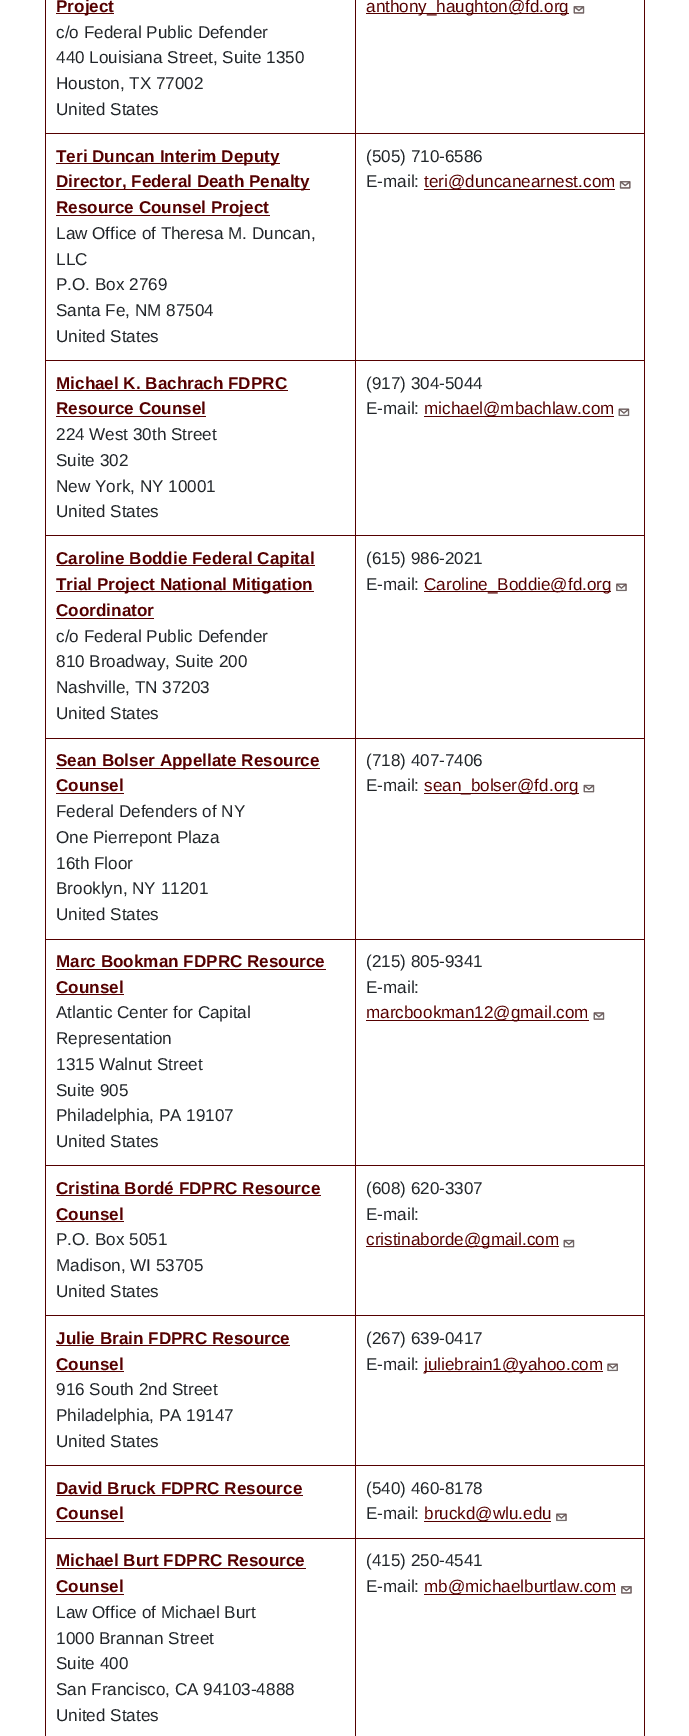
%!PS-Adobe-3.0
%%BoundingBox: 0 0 689 1736
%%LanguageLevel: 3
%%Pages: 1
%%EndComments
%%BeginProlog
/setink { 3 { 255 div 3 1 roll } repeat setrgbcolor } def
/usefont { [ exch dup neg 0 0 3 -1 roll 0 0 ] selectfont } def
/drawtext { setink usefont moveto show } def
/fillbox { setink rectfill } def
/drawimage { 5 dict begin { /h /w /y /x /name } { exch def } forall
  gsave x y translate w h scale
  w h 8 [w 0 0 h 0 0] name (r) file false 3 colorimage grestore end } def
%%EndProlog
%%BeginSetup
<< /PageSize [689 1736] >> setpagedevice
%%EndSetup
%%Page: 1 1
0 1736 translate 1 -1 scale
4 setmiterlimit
0 0 689 1736 255 255 255 fillbox
56 13 58 1 85 0 0 fillbox
(Project) 56 12 /LiberationSans-Bold 17.1 85 0 0 drawtext
(c/o Federal Public Defender) 56 38 /LiberationSans-Regular 17.1 33 37 41 drawtext
(440 Louisiana Street, Suite 1350) 56 63 /LiberationSans-Regular 17.1 33 37 41 drawtext
(Houston, TX 77002) 56 89 /LiberationSans-Regular 17.1 33 37 41 drawtext
(United States) 56 115 /LiberationSans-Regular 17.1 33 37 41 drawtext
355 133 290 1 85 0 0 fillbox
355 360 290 1 85 0 0 fillbox
355 535 290 1 85 0 0 fillbox
355 738 290 1 85 0 0 fillbox
355 939 290 1 85 0 0 fillbox
355 1165 290 1 85 0 0 fillbox
355 1315 290 1 85 0 0 fillbox
355 1465 290 1 85 0 0 fillbox
355 1538 290 1 85 0 0 fillbox
355 1538 1 198 85 0 0 fillbox
45 1538 311 1 85 0 0 fillbox
355 1465 1 74 85 0 0 fillbox
45 1465 311 1 85 0 0 fillbox
355 1315 1 151 85 0 0 fillbox
45 1315 311 1 85 0 0 fillbox
355 1165 1 151 85 0 0 fillbox
45 1165 311 1 85 0 0 fillbox
355 939 1 227 85 0 0 fillbox
45 939 311 1 85 0 0 fillbox
355 738 1 202 85 0 0 fillbox
45 738 311 1 85 0 0 fillbox
355 535 1 204 85 0 0 fillbox
45 535 311 1 85 0 0 fillbox
355 360 1 176 85 0 0 fillbox
45 360 311 1 85 0 0 fillbox
355 133 1 228 85 0 0 fillbox
45 133 311 1 85 0 0 fillbox
355 0 1 134 85 0 0 fillbox
366 13 203 1 85 0 0 fillbox
(anthony_haughton@fd.org) 366 12 /LiberationSans-Regular 17.1 85 0 0 drawtext
(assets/img1.rgb) 573 6 12 8 drawimage
45 1538 1 198 85 0 0 fillbox
45 1465 1 74 85 0 0 fillbox
45 1315 1 151 85 0 0 fillbox
45 1165 1 151 85 0 0 fillbox
45 939 1 227 85 0 0 fillbox
45 738 1 202 85 0 0 fillbox
45 535 1 204 85 0 0 fillbox
45 360 1 176 85 0 0 fillbox
45 0 1 361 85 0 0 fillbox
56 163 224 1 85 0 0 fillbox
(Teri Duncan Interim Deputy) 56 162 /LiberationSans-Bold 17.1 85 0 0 drawtext
56 189 254 1 85 0 0 fillbox
(Director, Federal Death Penalty) 56 187 /LiberationSans-Bold 17.1 85 0 0 drawtext
56 215 214 1 85 0 0 fillbox
(Resource Counsel Project) 56 213 /LiberationSans-Bold 17.1 85 0 0 drawtext
(Law Office of Theresa M. Duncan,) 56 239 /LiberationSans-Regular 17.1 33 37 41 drawtext
(LLC) 56 265 /LiberationSans-Regular 17.1 33 37 41 drawtext
(P.O. Box 2769) 56 290 /LiberationSans-Regular 17.1 33 37 41 drawtext
(Santa Fe, NM 87504) 56 316 /LiberationSans-Regular 17.1 33 37 41 drawtext
(United States) 56 342 /LiberationSans-Regular 17.1 33 37 41 drawtext
644 1538 1 198 85 0 0 fillbox
644 1465 1 74 85 0 0 fillbox
644 1315 1 151 85 0 0 fillbox
644 1165 1 151 85 0 0 fillbox
644 939 1 227 85 0 0 fillbox
644 738 1 202 85 0 0 fillbox
644 535 1 204 85 0 0 fillbox
644 360 1 176 85 0 0 fillbox
644 0 1 361 85 0 0 fillbox
(\(505\) 710-6586) 366 162 /LiberationSans-Regular 17.1 33 37 41 drawtext
(E-mail:) 366 187 /LiberationSans-Regular 17.1 33 37 41 drawtext
424 189 191 1 85 0 0 fillbox
(teri@duncanearnest.com) 424 187 /LiberationSans-Regular 17.1 85 0 0 drawtext
(assets/img2.rgb) 619 181 12 8 drawimage
(Michael K. Bachrach FDPRC) 56 389 /LiberationSans-Bold 17.1 85 0 0 drawtext
56 390 232 1 85 0 0 fillbox
(Resource Counsel) 56 414 /LiberationSans-Bold 17.1 85 0 0 drawtext
56 416 150 1 85 0 0 fillbox
(224 West 30th Street) 56 440 /LiberationSans-Regular 17.1 33 37 41 drawtext
(Suite 302) 56 466 /LiberationSans-Regular 17.1 33 37 41 drawtext
(New York, NY 10001) 56 492 /LiberationSans-Regular 17.1 33 37 41 drawtext
(United States) 56 517 /LiberationSans-Regular 17.1 33 37 41 drawtext
(\(917\) 304-5044) 366 389 /LiberationSans-Regular 17.1 33 37 41 drawtext
(E-mail:) 366 414 /LiberationSans-Regular 17.1 33 37 41 drawtext
424 416 190 1 85 0 0 fillbox
(michael@mbachlaw.com) 424 414 /LiberationSans-Regular 17.1 85 0 0 drawtext
(assets/img3.rgb) 618 408 12 9 drawimage
56 565 259 1 85 0 0 fillbox
(Caroline Boddie Federal Capital) 56 564 /LiberationSans-Bold 17.1 85 0 0 drawtext
56 591 258 1 85 0 0 fillbox
(Trial Project National Mitigation) 56 590 /LiberationSans-Bold 17.1 85 0 0 drawtext
(Coordinator) 56 616 /LiberationSans-Bold 17.1 85 0 0 drawtext
56 618 98 1 85 0 0 fillbox
(c/o Federal Public Defender) 56 642 /LiberationSans-Regular 17.1 33 37 41 drawtext
(810 Broadway, Suite 200) 56 667 /LiberationSans-Regular 17.1 33 37 41 drawtext
(Nashville, TN 37203) 56 693 /LiberationSans-Regular 17.1 33 37 41 drawtext
(United States) 56 719 /LiberationSans-Regular 17.1 33 37 41 drawtext
(\(615\) 986-2021) 366 564 /LiberationSans-Regular 17.1 33 37 41 drawtext
(E-mail:) 366 590 /LiberationSans-Regular 17.1 33 37 41 drawtext
424 591 187 1 85 0 0 fillbox
(Caroline_Boddie@fd.org) 424 590 /LiberationSans-Regular 17.1 85 0 0 drawtext
(assets/img4.rgb) 616 583 11 9 drawimage
56 768 264 1 85 0 0 fillbox
(Sean Bolser Appellate Resource) 56 766 /LiberationSans-Bold 17.1 85 0 0 drawtext
(Counsel) 56 791 /LiberationSans-Bold 17.1 85 0 0 drawtext
56 793 68 1 85 0 0 fillbox
(Federal Defenders of NY) 56 817 /LiberationSans-Regular 17.1 33 37 41 drawtext
(One Pierrepont Plaza) 56 843 /LiberationSans-Regular 17.1 33 37 41 drawtext
(16th Floor) 56 869 /LiberationSans-Regular 17.1 33 37 41 drawtext
(Brooklyn, NY 11201) 56 894 /LiberationSans-Regular 17.1 33 37 41 drawtext
(United States) 56 920 /LiberationSans-Regular 17.1 33 37 41 drawtext
(\(718\) 407-7406) 366 766 /LiberationSans-Regular 17.1 33 37 41 drawtext
(E-mail:) 366 791 /LiberationSans-Regular 17.1 33 37 41 drawtext
424 793 155 1 85 0 0 fillbox
(sean_bolser@fd.org) 424 791 /LiberationSans-Regular 17.1 85 0 0 drawtext
(assets/img5.rgb) 583 784 12 9 drawimage
(Marc Bookman FDPRC Resource) 56 967 /LiberationSans-Bold 17.1 85 0 0 drawtext
56 969 270 1 85 0 0 fillbox
(Counsel) 56 993 /LiberationSans-Bold 17.1 85 0 0 drawtext
56 994 68 1 85 0 0 fillbox
(Atlantic Center for Capital) 56 1018 /LiberationSans-Regular 17.1 33 37 41 drawtext
(Representation) 56 1044 /LiberationSans-Regular 17.1 33 37 41 drawtext
(1315 Walnut Street) 56 1070 /LiberationSans-Regular 17.1 33 37 41 drawtext
(Suite 905) 56 1096 /LiberationSans-Regular 17.1 33 37 41 drawtext
(Philadelphia, PA 19107) 56 1121 /LiberationSans-Regular 17.1 33 37 41 drawtext
(United States) 56 1147 /LiberationSans-Regular 17.1 33 37 41 drawtext
(\(215\) 805-9341) 366 967 /LiberationSans-Regular 17.1 33 37 41 drawtext
(E-mail:) 366 993 /LiberationSans-Regular 17.1 33 37 41 drawtext
366 1020 223 1 85 0 0 fillbox
(marcbookman12@gmail.com) 366 1018 /LiberationSans-Regular 17.1 85 0 0 drawtext
(assets/img6.rgb) 593 1012 12 8 drawimage
(Cristina Bordé FDPRC Resource) 56 1194 /LiberationSans-Bold 17.1 85 0 0 drawtext
56 1195 265 1 85 0 0 fillbox
(Counsel) 56 1220 /LiberationSans-Bold 17.1 85 0 0 drawtext
56 1221 68 1 85 0 0 fillbox
(P.O. Box 5051) 56 1245 /LiberationSans-Regular 17.1 33 37 41 drawtext
(Madison, WI 53705) 56 1271 /LiberationSans-Regular 17.1 33 37 41 drawtext
(United States) 56 1297 /LiberationSans-Regular 17.1 33 37 41 drawtext
(\(608\) 620-3307) 366 1194 /LiberationSans-Regular 17.1 33 37 41 drawtext
(E-mail:) 366 1220 /LiberationSans-Regular 17.1 33 37 41 drawtext
366 1246 193 1 85 0 0 fillbox
(cristinaborde@gmail.com) 366 1245 /LiberationSans-Regular 17.1 85 0 0 drawtext
(assets/img5.rgb) 563 1239 12 9 drawimage
(Julie Brain FDPRC Resource) 56 1344 /LiberationSans-Bold 17.1 85 0 0 drawtext
56 1345 234 1 85 0 0 fillbox
(Counsel) 56 1370 /LiberationSans-Bold 17.1 85 0 0 drawtext
56 1371 68 1 85 0 0 fillbox
(916 South 2nd Street) 56 1395 /LiberationSans-Regular 17.1 33 37 41 drawtext
(Philadelphia, PA 19147) 56 1421 /LiberationSans-Regular 17.1 33 37 41 drawtext
(United States) 56 1447 /LiberationSans-Regular 17.1 33 37 41 drawtext
(\(267\) 639-0417) 366 1344 /LiberationSans-Regular 17.1 33 37 41 drawtext
(E-mail:) 366 1370 /LiberationSans-Regular 17.1 33 37 41 drawtext
424 1371 179 1 85 0 0 fillbox
(juliebrain1@yahoo.com) 424 1370 /LiberationSans-Regular 17.1 85 0 0 drawtext
(assets/img7.rgb) 607 1363 11 9 drawimage
(David Bruck FDPRC Resource) 56 1494 /LiberationSans-Bold 17.1 85 0 0 drawtext
56 1495 247 1 85 0 0 fillbox
(Counsel) 56 1519 /LiberationSans-Bold 17.1 85 0 0 drawtext
56 1521 68 1 85 0 0 fillbox
(\(540\) 460-8178) 366 1494 /LiberationSans-Regular 17.1 33 37 41 drawtext
(E-mail:) 366 1519 /LiberationSans-Regular 17.1 33 37 41 drawtext
424 1521 127 1 85 0 0 fillbox
(bruckd@wlu.edu) 424 1519 /LiberationSans-Regular 17.1 85 0 0 drawtext
(assets/img4.rgb) 556 1513 11 9 drawimage
(Michael Burt FDPRC Resource) 56 1566 /LiberationSans-Bold 17.1 85 0 0 drawtext
56 1568 250 1 85 0 0 fillbox
(Counsel) 56 1592 /LiberationSans-Bold 17.1 85 0 0 drawtext
56 1594 68 1 85 0 0 fillbox
(Law Office of Michael Burt) 56 1618 /LiberationSans-Regular 17.1 33 37 41 drawtext
(1000 Brannan Street) 56 1644 /LiberationSans-Regular 17.1 33 37 41 drawtext
(Suite 400) 56 1669 /LiberationSans-Regular 17.1 33 37 41 drawtext
(San Francisco, CA 94103-4888) 56 1695 /LiberationSans-Regular 17.1 33 37 41 drawtext
(United States) 56 1721 /LiberationSans-Regular 17.1 33 37 41 drawtext
(\(415\) 250-4541) 366 1566 /LiberationSans-Regular 17.1 33 37 41 drawtext
(E-mail:) 366 1592 /LiberationSans-Regular 17.1 33 37 41 drawtext
424 1594 192 1 85 0 0 fillbox
(mb@michaelburtlaw.com) 424 1592 /LiberationSans-Regular 17.1 85 0 0 drawtext
(assets/img8.rgb) 621 1586 11 8 drawimage
showpage
%%EOF
